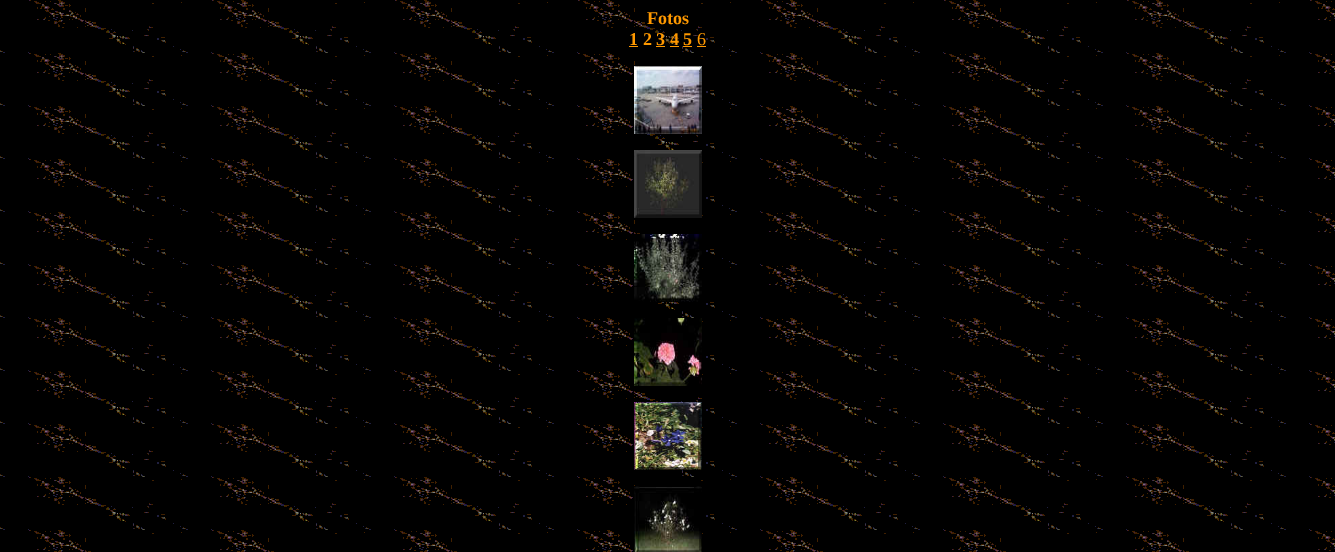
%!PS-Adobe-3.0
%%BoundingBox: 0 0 1335 552
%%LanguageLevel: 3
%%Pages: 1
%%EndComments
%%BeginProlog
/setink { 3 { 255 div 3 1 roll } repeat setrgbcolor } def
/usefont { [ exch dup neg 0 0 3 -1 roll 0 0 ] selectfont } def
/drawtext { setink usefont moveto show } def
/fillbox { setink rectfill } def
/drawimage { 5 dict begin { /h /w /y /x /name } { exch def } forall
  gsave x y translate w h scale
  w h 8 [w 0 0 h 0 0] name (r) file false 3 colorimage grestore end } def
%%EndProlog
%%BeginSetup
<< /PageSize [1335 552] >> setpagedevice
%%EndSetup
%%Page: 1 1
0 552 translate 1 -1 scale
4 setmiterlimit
0 0 1335 552 255 255 255 fillbox
(assets/img1.rgb) 0 0 1335 552 drawimage
(Fotos) 647 24 /LiberationSerif-Bold 18 255 153 0 drawtext
(1 2 3 4 5) 629 45 /LiberationSerif-Bold 18 255 153 0 drawtext
629 46 9 1 255 153 0 fillbox
656 46 9 1 255 153 0 fillbox
670 46 9 1 255 153 0 fillbox
683 46 9 1 255 153 0 fillbox
(6) 697 45 /LiberationSerif-Regular 18 255 153 0 drawtext
697 46 9 1 255 153 0 fillbox
(assets/img2.rgb) 634 66 68 68 drawimage
(assets/img3.rgb) 634 150 68 68 drawimage
(assets/img4.rgb) 634 234 68 68 drawimage
(assets/img5.rgb) 634 318 68 68 drawimage
(assets/img6.rgb) 634 402 68 68 drawimage
(assets/img7.rgb) 634 486 68 66 drawimage
showpage
%%EOF
